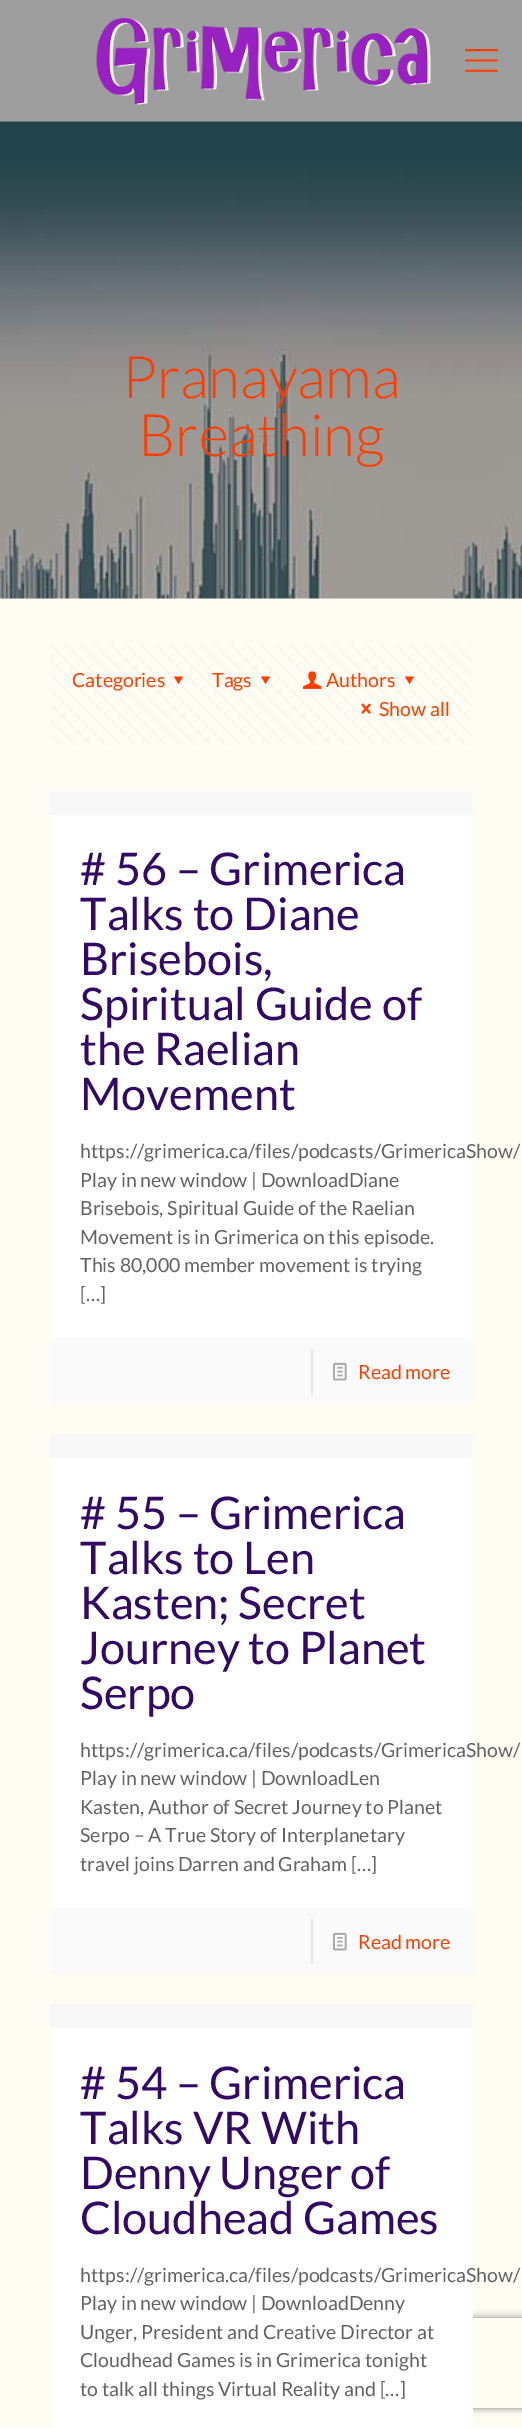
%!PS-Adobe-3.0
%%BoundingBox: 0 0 522 2428
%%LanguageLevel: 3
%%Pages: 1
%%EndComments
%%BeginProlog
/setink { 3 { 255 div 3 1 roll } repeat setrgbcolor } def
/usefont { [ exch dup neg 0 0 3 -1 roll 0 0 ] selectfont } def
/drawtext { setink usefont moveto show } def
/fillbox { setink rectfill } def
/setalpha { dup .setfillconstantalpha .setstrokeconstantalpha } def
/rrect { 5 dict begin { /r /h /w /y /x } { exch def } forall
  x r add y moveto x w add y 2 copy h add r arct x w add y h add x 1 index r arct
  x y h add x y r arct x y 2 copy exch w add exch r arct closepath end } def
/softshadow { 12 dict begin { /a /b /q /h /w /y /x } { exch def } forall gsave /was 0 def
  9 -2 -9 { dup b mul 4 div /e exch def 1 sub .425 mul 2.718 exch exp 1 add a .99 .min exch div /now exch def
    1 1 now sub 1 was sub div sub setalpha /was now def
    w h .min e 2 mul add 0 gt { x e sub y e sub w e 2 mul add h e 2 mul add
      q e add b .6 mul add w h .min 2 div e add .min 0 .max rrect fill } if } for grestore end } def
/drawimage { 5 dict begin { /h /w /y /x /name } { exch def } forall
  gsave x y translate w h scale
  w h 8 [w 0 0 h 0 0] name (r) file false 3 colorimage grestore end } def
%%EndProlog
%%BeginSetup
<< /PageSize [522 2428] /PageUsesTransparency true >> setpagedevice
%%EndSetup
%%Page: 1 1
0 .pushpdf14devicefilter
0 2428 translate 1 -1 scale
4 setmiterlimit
0 0 522 2428 255 253 243 fillbox
0 0 522 122 158 158 158 fillbox
(assets/img1.rgb) 96 18 335 87 drawimage
(assets/img2.rgb) 465 49 33 23 drawimage
0 598 522 1 247 247 247 fillbox
(assets/img3.rgb) 0 121 522 478 drawimage
(Pranayama) 122 398 /Lato-Light 58.5 255 61 0 drawtext
(Breathing) 138 456 /Lato-Light 58.5 255 61 0 drawtext
(assets/img4.rgb) 50 644 422 101 drawimage
(Categories) 72 687 /Lato-Regular 19.5 255 61 0 drawtext
183 676.5 moveto 178.5 684 lineto 174 676.5 lineto closepath fill
(Tags) 212 687 /Lato-Regular 19.5 255 61 0 drawtext
270 676.5 moveto 265.5 684 lineto 261 676.5 lineto closepath fill
(assets/img5.rgb) 303 671 19 18 drawimage
(Authors) 326 687 /Lato-Regular 19.5 255 61 0 drawtext
414 676.5 moveto 409.5 684 lineto 405 676.5 lineto closepath fill
(assets/img6.rgb) 361 703 10 11 drawimage
(Show all) 379 716 /Lato-Regular 19.5 255 61 0 drawtext
50 815 423 523 255 255 255 fillbox
50 791 423 24 248 248 248 fillbox
(# 56 – Grimerica) 80 885 /Lato-Regular 45 50 9 101 drawtext
(Talks to Diane) 80 930 /Lato-Regular 45 50 9 101 drawtext
(Brisebois,) 80 975 /Lato-Regular 45 50 9 101 drawtext
(Spiritual Guide of) 80 1020 /Lato-Regular 45 50 9 101 drawtext
(the Raelian) 80 1065 /Lato-Regular 45 50 9 101 drawtext
(Movement) 80 1110 /Lato-Regular 45 50 9 101 drawtext
(https://grimerica.ca/files/podcasts/GrimericaShow/) 80 1158 /Lato-Regular 19.5 98 98 98 drawtext
(Play in new window | DownloadDiane) 80 1187 /Lato-Regular 19.5 98 98 98 drawtext
(Brisebois, Spiritual Guide of the Raelian) 80 1215 /Lato-Regular 19.5 98 98 98 drawtext
(Movement is in Grimerica on this episode.) 80 1244 /Lato-Regular 19.5 98 98 98 drawtext
(This 80,000 member movement is trying) 80 1272 /Lato-Regular 19.5 98 98 98 drawtext
([…]) 80 1301 /Lato-Regular 19.5 98 98 98 drawtext
50 1338 423 66 250 250 250 fillbox
311 1349 2 45 230 230 230 fillbox
(assets/img7.rgb) 333 1362 14 19 drawimage
(Read more) 358 1379 /Lato-Regular 19.5 255 61 0 drawtext
50 1458 423 450 255 255 255 fillbox
50 1434 423 24 248 248 248 fillbox
(# 55 – Grimerica) 80 1529 /Lato-Regular 45 50 9 101 drawtext
(Talks to Len) 80 1574 /Lato-Regular 45 50 9 101 drawtext
(Kasten; Secret) 80 1619 /Lato-Regular 45 50 9 101 drawtext
(Journey to Planet) 80 1664 /Lato-Regular 45 50 9 101 drawtext
(Serpo) 80 1709 /Lato-Regular 45 50 9 101 drawtext
(https://grimerica.ca/files/podcasts/GrimericaShow/) 80 1757 /Lato-Regular 19.5 98 98 98 drawtext
(Play in new window | DownloadLen) 80 1785 /Lato-Regular 19.5 98 98 98 drawtext
(Kasten, Author of Secret Journey to Planet) 80 1814 /Lato-Regular 19.5 98 98 98 drawtext
(Serpo – A True Story of Interplanetary) 80 1842 /Lato-Regular 19.5 98 98 98 drawtext
(travel joins Darren and Graham […]) 80 1871 /Lato-Regular 19.5 98 98 98 drawtext
50 1908 423 66 250 250 250 fillbox
311 1919 2 45 230 230 230 fillbox
(assets/img7.rgb) 333 1932 14 19 drawimage
(Read more) 358 1949 /Lato-Regular 19.5 255 61 0 drawtext
gsave
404 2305 moveto 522 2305 lineto 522 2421 lineto 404 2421 lineto closepath 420 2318 moveto 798 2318 lineto 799.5 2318 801 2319.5 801 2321 curveto 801 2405 lineto 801 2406.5 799.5 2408 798 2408 curveto 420 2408 lineto 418.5 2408 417 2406.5 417 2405 curveto 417 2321 lineto 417 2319.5 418.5 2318 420 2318 curveto closepath eoclip newpath
128 128 128 setink
417 2318 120 90 3 4 1 softshadow
grestore
50 2028 423 400 255 255 255 fillbox
50 2004 423 24 248 248 248 fillbox
(# 54 – Grimerica) 80 2099 /Lato-Regular 45 50 9 101 drawtext
(Talks VR With) 80 2144 /Lato-Regular 45 50 9 101 drawtext
(Denny Unger of) 80 2189 /Lato-Regular 45 50 9 101 drawtext
(Cloudhead Games) 80 2234 /Lato-Regular 45 50 9 101 drawtext
(https://grimerica.ca/files/podcasts/GrimericaShow/) 80 2282 /Lato-Regular 19.5 98 98 98 drawtext
(Play in new window | DownloadDenny) 80 2310 /Lato-Regular 19.5 98 98 98 drawtext
(Unger, President and Creative Director at) 80 2339 /Lato-Regular 19.5 98 98 98 drawtext
(Cloudhead Games is in Grimerica tonight) 80 2367 /Lato-Regular 19.5 98 98 98 drawtext
(to talk all things Virtual Reality and […]) 80 2396 /Lato-Regular 19.5 98 98 98 drawtext
.poppdf14devicefilter showpage
%%EOF
